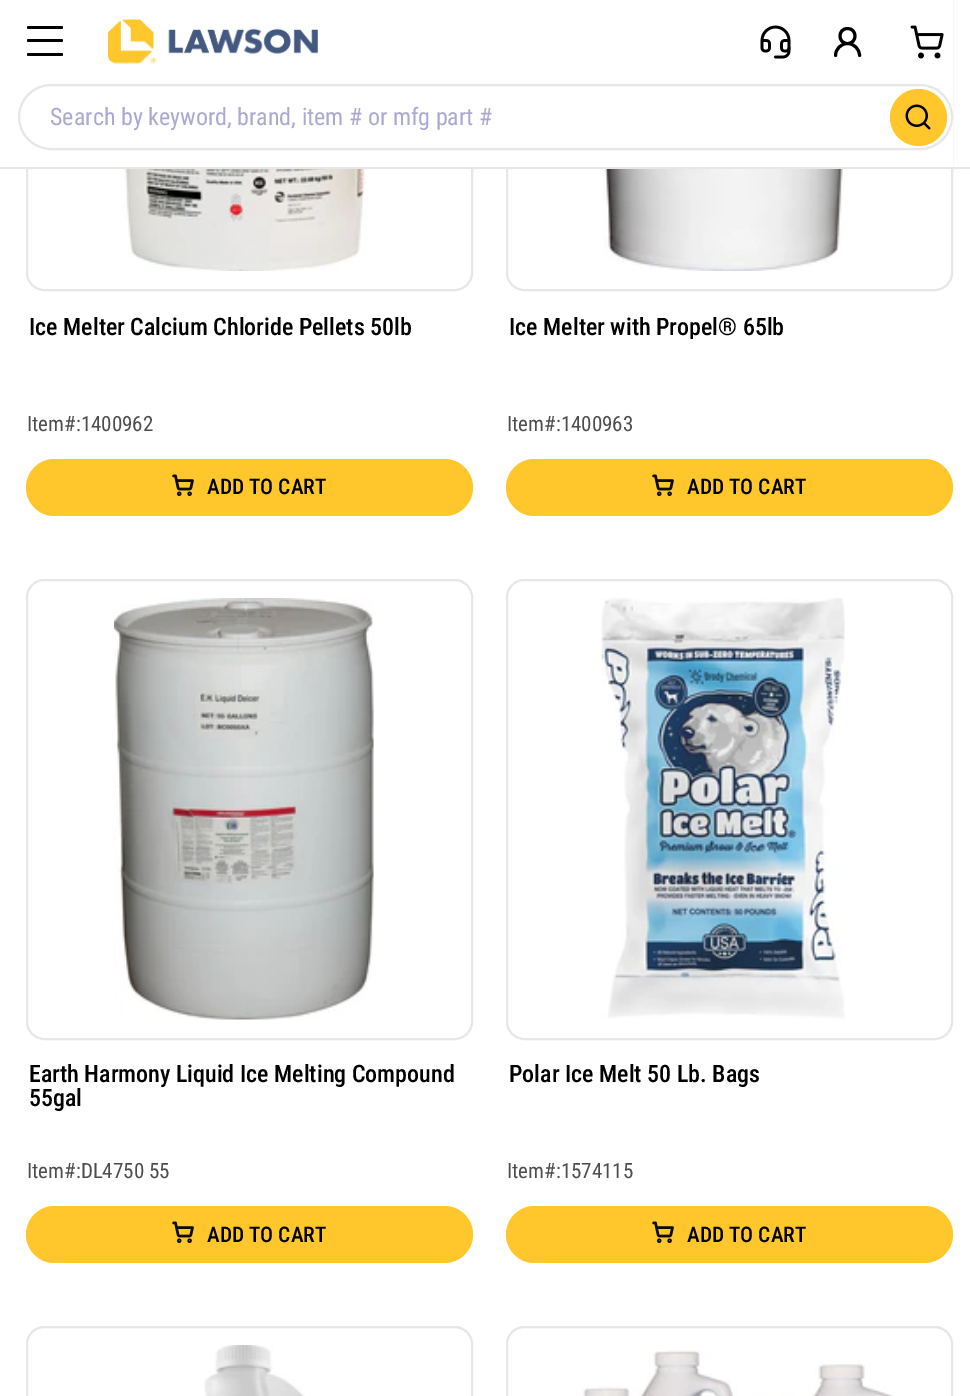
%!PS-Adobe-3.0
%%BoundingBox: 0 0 970 1396
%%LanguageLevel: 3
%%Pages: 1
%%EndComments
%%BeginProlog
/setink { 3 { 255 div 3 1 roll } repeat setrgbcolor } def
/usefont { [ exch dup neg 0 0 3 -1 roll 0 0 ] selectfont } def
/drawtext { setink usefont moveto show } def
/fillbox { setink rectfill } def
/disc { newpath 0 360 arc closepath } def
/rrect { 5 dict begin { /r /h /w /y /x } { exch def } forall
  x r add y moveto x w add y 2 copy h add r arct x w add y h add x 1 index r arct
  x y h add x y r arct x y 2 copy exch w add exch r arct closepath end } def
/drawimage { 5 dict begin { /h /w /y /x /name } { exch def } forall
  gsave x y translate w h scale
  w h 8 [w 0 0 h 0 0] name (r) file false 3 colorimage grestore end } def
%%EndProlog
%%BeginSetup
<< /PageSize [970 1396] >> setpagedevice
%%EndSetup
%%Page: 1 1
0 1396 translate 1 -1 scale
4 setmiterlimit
0 0 970 1396 255 255 255 fillbox
231 231 231 setink
2 setlinewidth
27 -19 445 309 17 rrect stroke
507 -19 445 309 17 rrect stroke
26 0 927 167 255 255 255 fillbox
0 167 970 2 231 231 231 fillbox
0 0 0 setink
27 26 36 3 1.5 rrect fill
27 39 36 3 1.5 rrect fill
27 53 36 3 1.5 rrect fill
(assets/img1.rgb) 108 19 210 45 drawimage
(assets/img2.rgb) 760 25 31 34 drawimage
3 setlinewidth
1 setlinecap
1 setlinejoin
847.5 43.5 moveto 857.5 43.5 857.5 28.5 847.5 28.5 curveto 837.5 28.5 837.5 43.5 847.5 43.5 curveto closepath 847.5 43.5 moveto 854 43.5 859.5 49 859.5 55.5 curveto 847.5 43.5 moveto 841 43.5 835.5 49 835.5 55.5 curveto stroke
(assets/img3.rgb) 910 25 34 34 drawimage
231 231 231 setink
2 setlinewidth
0 setlinecap
0 setlinejoin
19 85 933 64 32 rrect stroke
(Search by keyword, brand, item # or mfg part #) 50 125 /RobotoCondensed-Regular 24 171 169 209 drawtext
255 199 44 setink
918.5 117.5 28.5 disc fill
(assets/img4.rgb) 905 104 26 26 drawimage
(assets/img5.rgb) 116 169 257 102 drawimage
(Ice Melter Calcium Chloride Pellets 50lb) 29 335 /RobotoCondensed-Medium 24 0 0 0 drawtext
(Item#:1400962) 27 431 /RobotoCondensed-Regular 21 77 77 77 drawtext
255 199 44 setink
26 459 447 57 28.5 rrect fill
(assets/img6.rgb) 172 474 22 23 drawimage
(ADD TO CART) 207 494 /RobotoCondensed-Medium 21.5 0 0 0 drawtext
(assets/img7.rgb) 595 169 259 102 drawimage
gsave
507 315 446 24 rectclip
(Ice Melter with Propel® 65lb) 509 335 /RobotoCondensed-Medium 24 0 0 0 drawtext
grestore
(Item#:1400963) 507 431 /RobotoCondensed-Regular 21 77 77 77 drawtext
255 199 44 setink
506 459 447 57 28.5 rrect fill
(assets/img6.rgb) 652 474 22 23 drawimage
(ADD TO CART) 687 494 /RobotoCondensed-Medium 21.5 0 0 0 drawtext
231 231 231 setink
27 580 445 459 17 rrect stroke
(assets/img8.rgb) 114 598 260 422 drawimage
(Earth Harmony Liquid Ice Melting Compound) 29 1082 /RobotoCondensed-Medium 24 0 0 0 drawtext
(55gal) 29 1106 /RobotoCondensed-Medium 24 0 0 0 drawtext
(Item#:DL4750 55) 27 1178 /RobotoCondensed-Regular 21 77 77 77 drawtext
255 199 44 setink
26 1206 447 57 28.5 rrect fill
(assets/img6.rgb) 172 1221 22 23 drawimage
(ADD TO CART) 207 1242 /RobotoCondensed-Medium 21.5 0 0 0 drawtext
231 231 231 setink
507 580 445 459 17 rrect stroke
(assets/img9.rgb) 601 598 244 421 drawimage
(Polar Ice Melt 50 Lb. Bags) 509 1082 /RobotoCondensed-Medium 24 0 0 0 drawtext
(Item#:1574115) 507 1178 /RobotoCondensed-Regular 21 77 77 77 drawtext
255 199 44 setink
506 1206 447 57 28.5 rrect fill
(assets/img6.rgb) 652 1221 22 23 drawimage
(ADD TO CART) 687 1242 /RobotoCondensed-Medium 21.5 0 0 0 drawtext
231 231 231 setink
27 1327 445 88 17 rrect stroke
(assets/img10.rgb) 204 1345 101 51 drawimage
507 1327 445 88 17 rrect stroke
(assets/img11.rgb) 583 1350 310 46 drawimage
showpage
%%EOF
